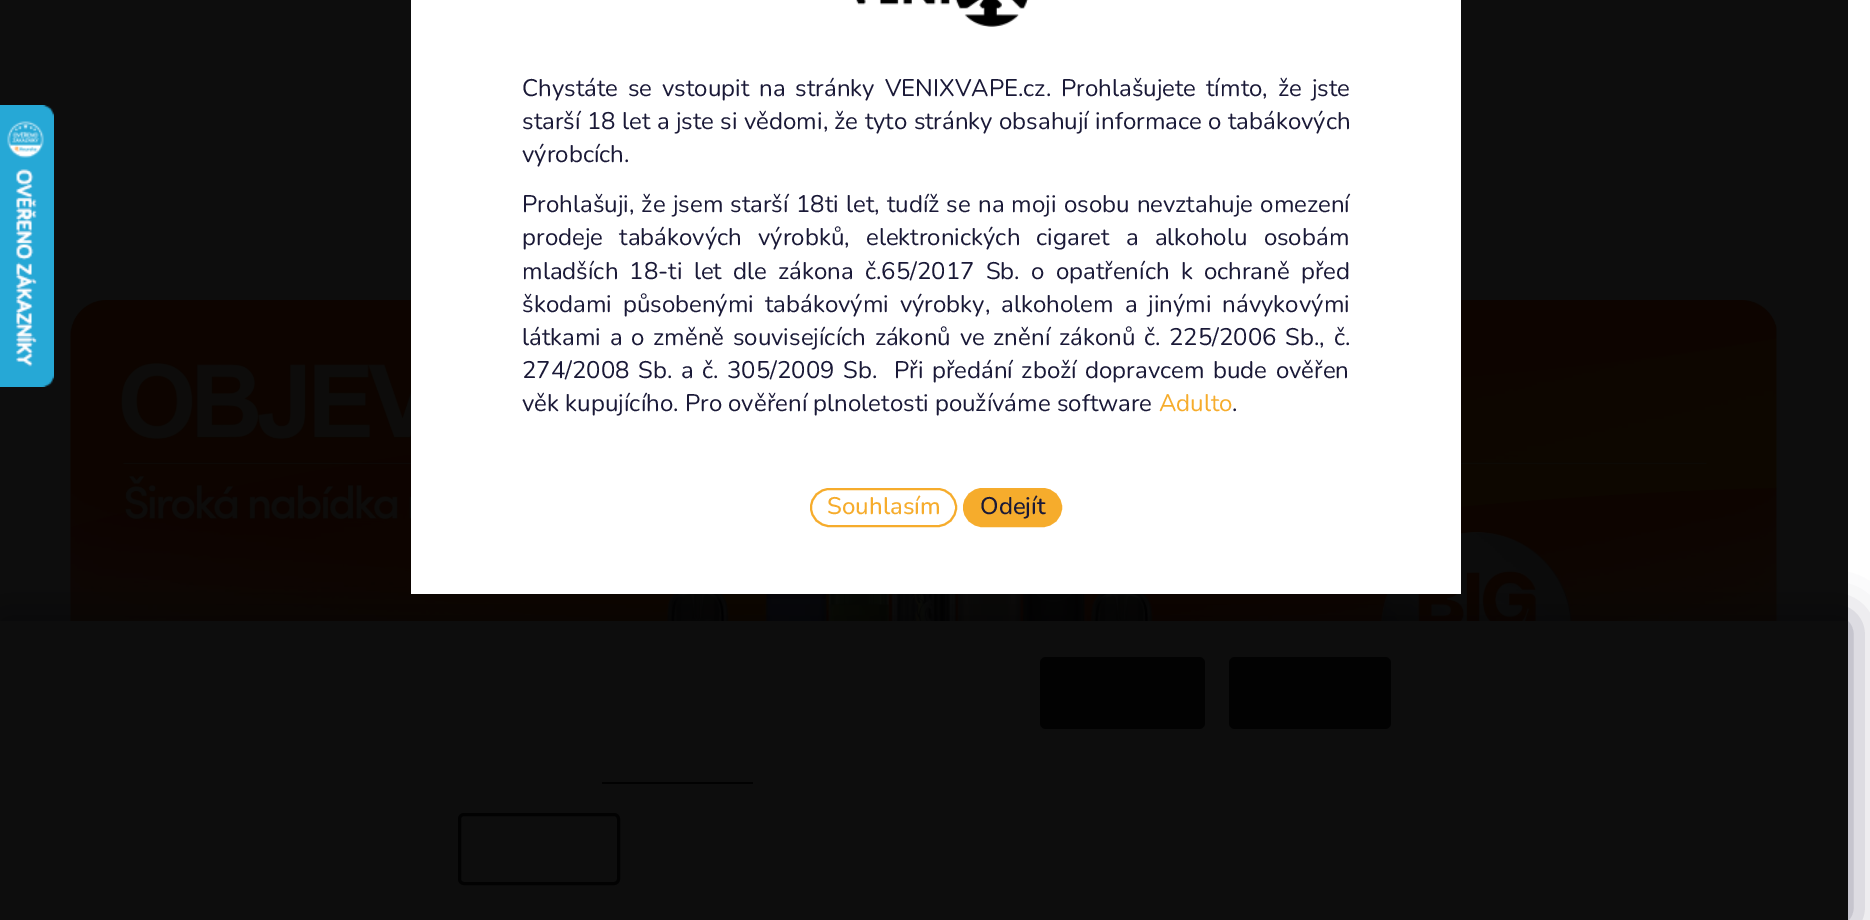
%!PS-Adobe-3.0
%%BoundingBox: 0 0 1870 920
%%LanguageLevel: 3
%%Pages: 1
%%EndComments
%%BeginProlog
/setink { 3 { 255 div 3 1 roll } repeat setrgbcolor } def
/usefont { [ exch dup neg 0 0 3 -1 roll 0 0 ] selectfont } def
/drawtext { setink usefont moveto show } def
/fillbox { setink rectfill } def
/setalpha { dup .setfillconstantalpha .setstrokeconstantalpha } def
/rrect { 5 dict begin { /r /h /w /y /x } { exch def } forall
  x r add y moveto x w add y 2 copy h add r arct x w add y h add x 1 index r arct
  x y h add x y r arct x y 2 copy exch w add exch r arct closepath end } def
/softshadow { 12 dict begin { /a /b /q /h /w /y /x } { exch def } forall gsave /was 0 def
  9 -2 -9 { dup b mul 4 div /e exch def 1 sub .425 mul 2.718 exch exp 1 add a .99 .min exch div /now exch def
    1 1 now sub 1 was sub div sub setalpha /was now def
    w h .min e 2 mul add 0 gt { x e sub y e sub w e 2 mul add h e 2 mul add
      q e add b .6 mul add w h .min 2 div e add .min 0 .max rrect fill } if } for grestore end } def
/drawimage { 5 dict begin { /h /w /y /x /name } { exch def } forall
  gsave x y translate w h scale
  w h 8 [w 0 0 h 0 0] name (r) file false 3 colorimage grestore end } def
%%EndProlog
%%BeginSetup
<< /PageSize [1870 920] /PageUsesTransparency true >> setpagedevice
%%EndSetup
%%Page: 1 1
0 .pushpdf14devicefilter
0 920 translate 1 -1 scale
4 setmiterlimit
0 0 1870 920 255 255 255 fillbox
(assets/img3.rgb) 70 300 1708 321 drawimage
27 25 57 setink
0 621 1848 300 0 22.5 0.5 softshadow
0 621 1848 299 248 250 251 fillbox
37 37 37 setink
1040 657 165 72 6 rrect fill
1229 657 162 72 6 rrect fill
602 782 151 2 37 37 37 fillbox
3 setlinewidth
459.5 814.5 159 69 4.5 rrect stroke
0.95 setalpha
0 0 1848 920 0 0 0 fillbox
1 setalpha
(assets/img1.rgb) 0 105 54 282 drawimage
411 0 1050 594 255 255 255 fillbox
(assets/img2.rgb) 856 0 173 27 drawimage
/Nunito-Regular 24 usefont
26 25 55 setink
522 96 moveto 3.75 0 32 (Chystáte se vstoupit na stránky VENIXVAPE.cz. Prohlašujete tímto, že jste) widthshow
522 129 moveto 0.2 0 32 (starší 18 let a jste si vědomi, že tyto stránky obsahují informace o tabákových) widthshow
(výrobcích.) 522 162 /Nunito-Regular 24 26 25 55 drawtext
522 212 moveto 1 0 32 (Prohlašuji, že jsem starší 18ti let, tudíž se na moji osobu nevztahuje omezení) widthshow
522 245 moveto 10 0 32 (prodeje tabákových výrobků, elektronických cigaret a alkoholu osobám) widthshow
522 279 moveto 5 0 32 (mladších 18-ti let dle zákona č.65/2017 Sb. o opatřeních k ochraně před) widthshow
522 312 moveto 4.75 0 32 (škodami působenými tabákovými výrobky, alkoholem a jinými návykovými) widthshow
522 345 moveto 2.5 0 32 (látkami a o změně souvisejících zákonů ve znění zákonů č. 225/2006 Sb., č.) widthshow
522 378 moveto 2.25 0 32 (274/2008 Sb. a č. 305/2009 Sb.  Při předání zboží dopravcem bude ověřen) widthshow
(věk kupujícího. Pro ověření plnoletosti používáme software) 522 411 /Nunito-Regular 24 26 25 55 drawtext
(Adulto) 1159 411 /Nunito-Regular 24 246 172 44 drawtext
(.) 1232 411 /Nunito-Regular 24 26 25 55 drawtext
246 172 44 setink
2 setlinewidth
811 489 145 37 18.5 rrect stroke
(Souhlasím) 827 514 /Nunito-Medium 24 246 172 44 drawtext
964 489 97 37 18.5 rrect gsave fill grestore
stroke
(Odejít) 980 514 /Nunito-Medium 24 26 25 55 drawtext
.poppdf14devicefilter showpage
%%EOF
